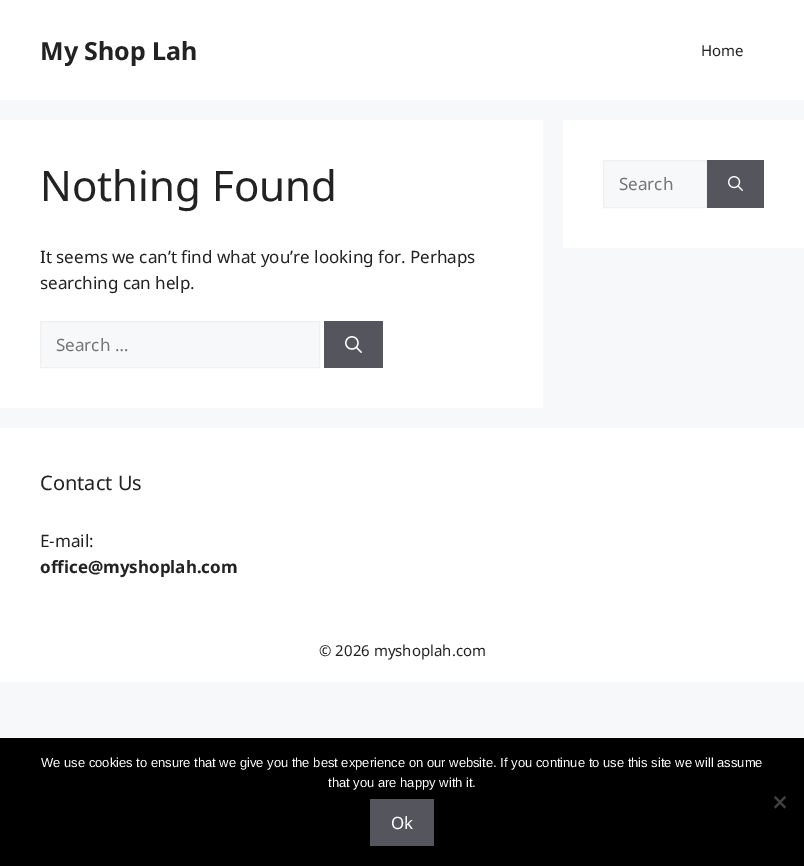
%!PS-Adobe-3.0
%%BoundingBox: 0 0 804 866
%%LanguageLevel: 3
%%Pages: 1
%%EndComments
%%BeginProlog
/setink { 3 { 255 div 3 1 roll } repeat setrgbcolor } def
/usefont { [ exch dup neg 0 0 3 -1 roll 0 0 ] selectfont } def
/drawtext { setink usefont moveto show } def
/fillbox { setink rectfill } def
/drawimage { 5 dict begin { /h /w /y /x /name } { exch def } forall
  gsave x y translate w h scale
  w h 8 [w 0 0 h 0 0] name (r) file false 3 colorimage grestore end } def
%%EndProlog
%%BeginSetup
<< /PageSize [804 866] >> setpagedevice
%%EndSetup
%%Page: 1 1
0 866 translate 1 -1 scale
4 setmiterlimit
0 0 804 866 247 248 249 fillbox
0 0 804 100 255 255 255 fillbox
(My Shop Lah) 40 60 /NotoSans-Bold 25 34 34 34 drawtext
(Home) 701 56 /NotoSans-Regular 15 34 34 34 drawtext
0 120 543 288 255 255 255 fillbox
(Nothing Found) 40 201 /NotoSans-Regular 42 34 34 34 drawtext
(It seems we can’t find what you’re looking for. Perhaps) 40 263 /NotoSans-Regular 17 34 34 34 drawtext
(searching can help.) 40 289 /NotoSans-Regular 17 34 34 34 drawtext
247 248 249 setink
40.5 321.5 moveto 319.5 321.5 lineto 319.5 367.5 lineto 40.5 367.5 lineto closepath gsave fill grestore
240 240 240 setink
stroke
(Search …) 56 351 /NotoSans-Regular 17 117 117 117 drawtext
324 321 59 47 85 85 94 fillbox
(assets/img1.rgb) 345 336 17 17 drawimage
563 120 241 128 255 255 255 fillbox
247 248 249 setink
603.5 160.5 moveto 706.5 160.5 lineto 706.5 207.5 lineto 603.5 207.5 lineto closepath gsave fill grestore
240 240 240 setink
stroke
(Search) 619 190 /NotoSans-Regular 17 117 117 117 drawtext
707 160 57 48 85 85 94 fillbox
(assets/img2.rgb) 728 176 15 15 drawimage
0 428 804 254 255 255 255 fillbox
(Contact Us) 40 490 /NotoSans-Regular 20 34 34 34 drawtext
(E-mail:) 40 547 /NotoSans-Regular 17 34 34 34 drawtext
(office@myshoplah.com) 40 573 /NotoSans-Bold 17 34 34 34 drawtext
(© 2026 myshoplah.com) 319 656 /NotoSans-Regular 15 34 34 34 drawtext
0 738 804 128 0 0 0 fillbox
(We use cookies to ensure that we give you the best experience on our website. If you continue to use this site we will assume) 41 767 /LiberationSans-Regular 13 255 255 255 drawtext
(that you are happy with it.) 328 787 /LiberationSans-Regular 13 255 255 255 drawtext
64 64 64 setink
784.5 796 moveto 786 797.5 lineto 775.5 808.5 lineto 774 807 lineto closepath fill
774 797.5 moveto 775.5 796 lineto 786 807 lineto 784.5 808.5 lineto closepath fill
370 799 64 47 85 85 94 fillbox
(Ok) 391 829 /NotoSans-Regular 17 255 255 255 drawtext
showpage
%%EOF
